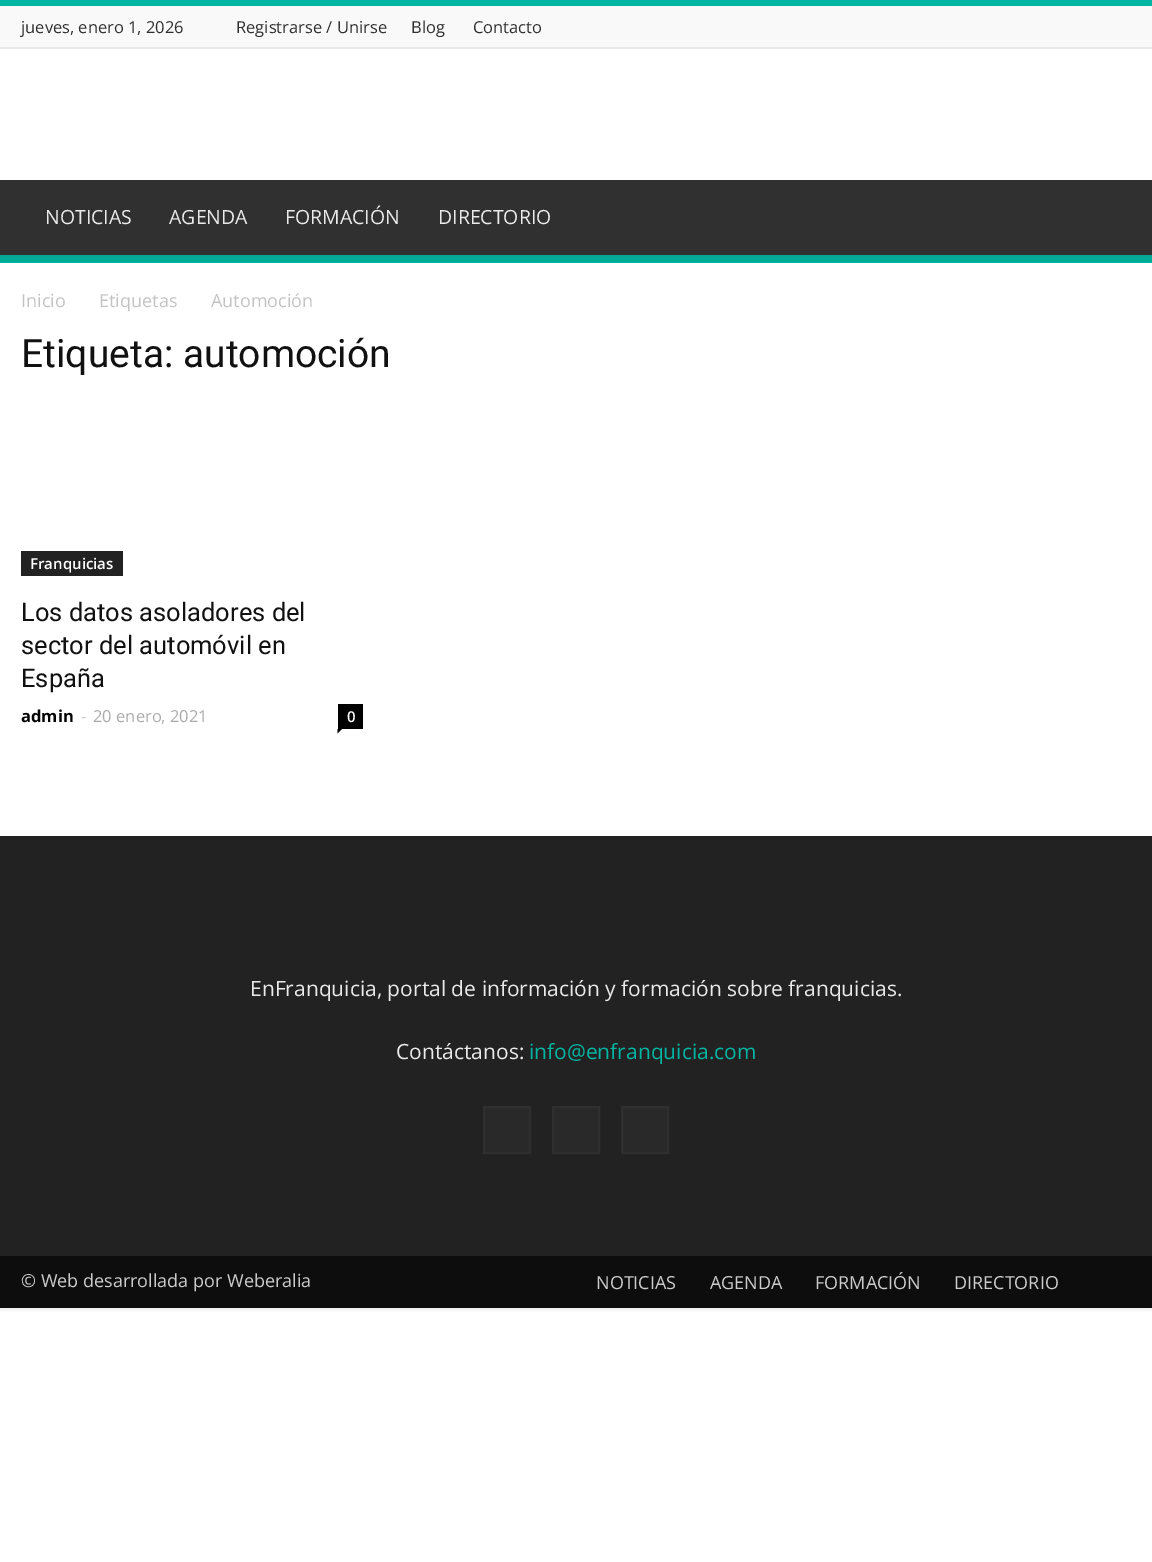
%!PS-Adobe-3.0
%%BoundingBox: 0 0 1152 1562
%%LanguageLevel: 3
%%Pages: 1
%%EndComments
%%BeginProlog
/setink { 3 { 255 div 3 1 roll } repeat setrgbcolor } def
/usefont { [ exch dup neg 0 0 3 -1 roll 0 0 ] selectfont } def
/drawtext { setink usefont moveto show } def
/fillbox { setink rectfill } def
/setalpha { dup .setfillconstantalpha .setstrokeconstantalpha } def
/rrect { 5 dict begin { /r /h /w /y /x } { exch def } forall
  x r add y moveto x w add y 2 copy h add r arct x w add y h add x 1 index r arct
  x y h add x y r arct x y 2 copy exch w add exch r arct closepath end } def
/softshadow { 12 dict begin { /a /b /q /h /w /y /x } { exch def } forall gsave /was 0 def
  9 -2 -9 { dup b mul 4 div /e exch def 1 sub .425 mul 2.718 exch exp 1 add a .99 .min exch div /now exch def
    1 1 now sub 1 was sub div sub setalpha /was now def
    w h .min e 2 mul add 0 gt { x e sub y e sub w e 2 mul add h e 2 mul add
      q e add b .6 mul add w h .min 2 div e add .min 0 .max rrect fill } if } for grestore end } def
/drawimage { 5 dict begin { /h /w /y /x /name } { exch def } forall
  gsave x y translate w h scale
  w h 8 [w 0 0 h 0 0] name (r) file false 3 colorimage grestore end } def
%%EndProlog
%%BeginSetup
<< /PageSize [1152 1562] /PageUsesTransparency true >> setpagedevice
%%EndSetup
%%Page: 1 1
0 .pushpdf14devicefilter
0 1562 translate 1 -1 scale
4 setmiterlimit
0 0 1152 1562 255 255 255 fillbox
gsave
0 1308 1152 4 rectclip
0 0 0 setink
0 0 1152 1308 0 4 0.12 softshadow
grestore
0 6 1152 41 249 249 249 fillbox
0 0 1152 6 0 182 162 fillbox
0 47 1152 2 233 233 233 fillbox
(jueves, enero 1, 2026) 21 33 /OpenSans-Regular 16.5 47 47 47 drawtext
(Registrarse / Unirse) 236 33 /OpenSans-Regular 16.5 47 47 47 drawtext
(Blog) 411 33 /OpenSans-Regular 16.5 47 47 47 drawtext
(Contacto) 473 33 /OpenSans-Regular 16.5 47 47 47 drawtext
0 180 1152 75 48 48 48 fillbox
(NOTICIAS) 45 224 /OpenSans-Regular 19.5 234 234 234 drawtext
(AGENDA) 169 224 /OpenSans-Regular 19.5 234 234 234 drawtext
(FORMACIÓN) 285 224 /OpenSans-Regular 19.5 234 234 234 drawtext
(DIRECTORIO) 438 224 /OpenSans-Regular 19.5 234 234 234 drawtext
0 255 1152 8 0 182 162 fillbox
(assets/img1.rgb) 0 255 1152 7 drawimage
(Inicio) 21 307 /OpenSans-Regular 18 195 195 195 drawtext
(Etiquetas) 99 307 /OpenSans-Regular 18 195 195 195 drawtext
(Automoción) 211 307 /OpenSans-Regular 18 195 195 195 drawtext
(Etiqueta: automoción) 21 367 /Roboto-Regular 39 17 17 17 drawtext
21 551 102 25 34 34 34 fillbox
(Franquicias) 30 569 /OpenSans-SemiBold 15 255 255 255 drawtext
(Los datos asoladores del) 21 621 /Roboto-Regular 25.5 17 17 17 drawtext
(sector del automóvil en) 21 654 /Roboto-Regular 25.5 17 17 17 drawtext
(España) 21 687 /Roboto-Regular 25.5 17 17 17 drawtext
(admin) 21 722 /OpenSans-Bold 16.5 0 0 0 drawtext
(-) 81 722 /OpenSans-Regular 16.5 204 204 204 drawtext
(20 enero, 2021) 93 722 /OpenSans-Regular 16.5 170 170 170 drawtext
338 704 25 25 0 0 0 fillbox
(0) 347 722 /OpenSans-SemiBold 15 255 255 255 drawtext
0 0 0 setink
337.5 729 moveto 342 729 lineto 337.5 733.5 lineto closepath fill
0 836 1152 420 34 34 34 fillbox
(EnFranquicia, portal de información y formación sobre franquicias.) 250 996 /OpenSans-Regular 21 234 234 234 drawtext
(Contáctanos:) 396 1059 /OpenSans-Regular 21 234 234 234 drawtext
(info@enfranquicia.com) 529 1059 /OpenSans-Regular 21 0 182 162 drawtext
41 41 41 setink
484 1107 moveto 530 1107 lineto 530 1153 lineto 484 1153 lineto closepath gsave fill grestore
47 47 47 setink
2 setlinewidth
stroke
41 41 41 setink
553 1107 moveto 599 1107 lineto 599 1153 lineto 553 1153 lineto closepath gsave fill grestore
47 47 47 setink
stroke
41 41 41 setink
622 1107 moveto 668 1107 lineto 668 1153 lineto 622 1153 lineto closepath gsave fill grestore
47 47 47 setink
stroke
0 1256 1152 52 13 13 13 fillbox
(© Web desarrollada por Weberalia) 21 1287 /OpenSans-Regular 18 204 204 204 drawtext
(NOTICIAS) 596 1289 /OpenSans-Regular 18 204 204 204 drawtext
(AGENDA) 710 1289 /OpenSans-Regular 18 204 204 204 drawtext
(FORMACIÓN) 815 1289 /OpenSans-Regular 18 204 204 204 drawtext
(DIRECTORIO) 954 1289 /OpenSans-Regular 18 204 204 204 drawtext
.poppdf14devicefilter showpage
%%EOF
